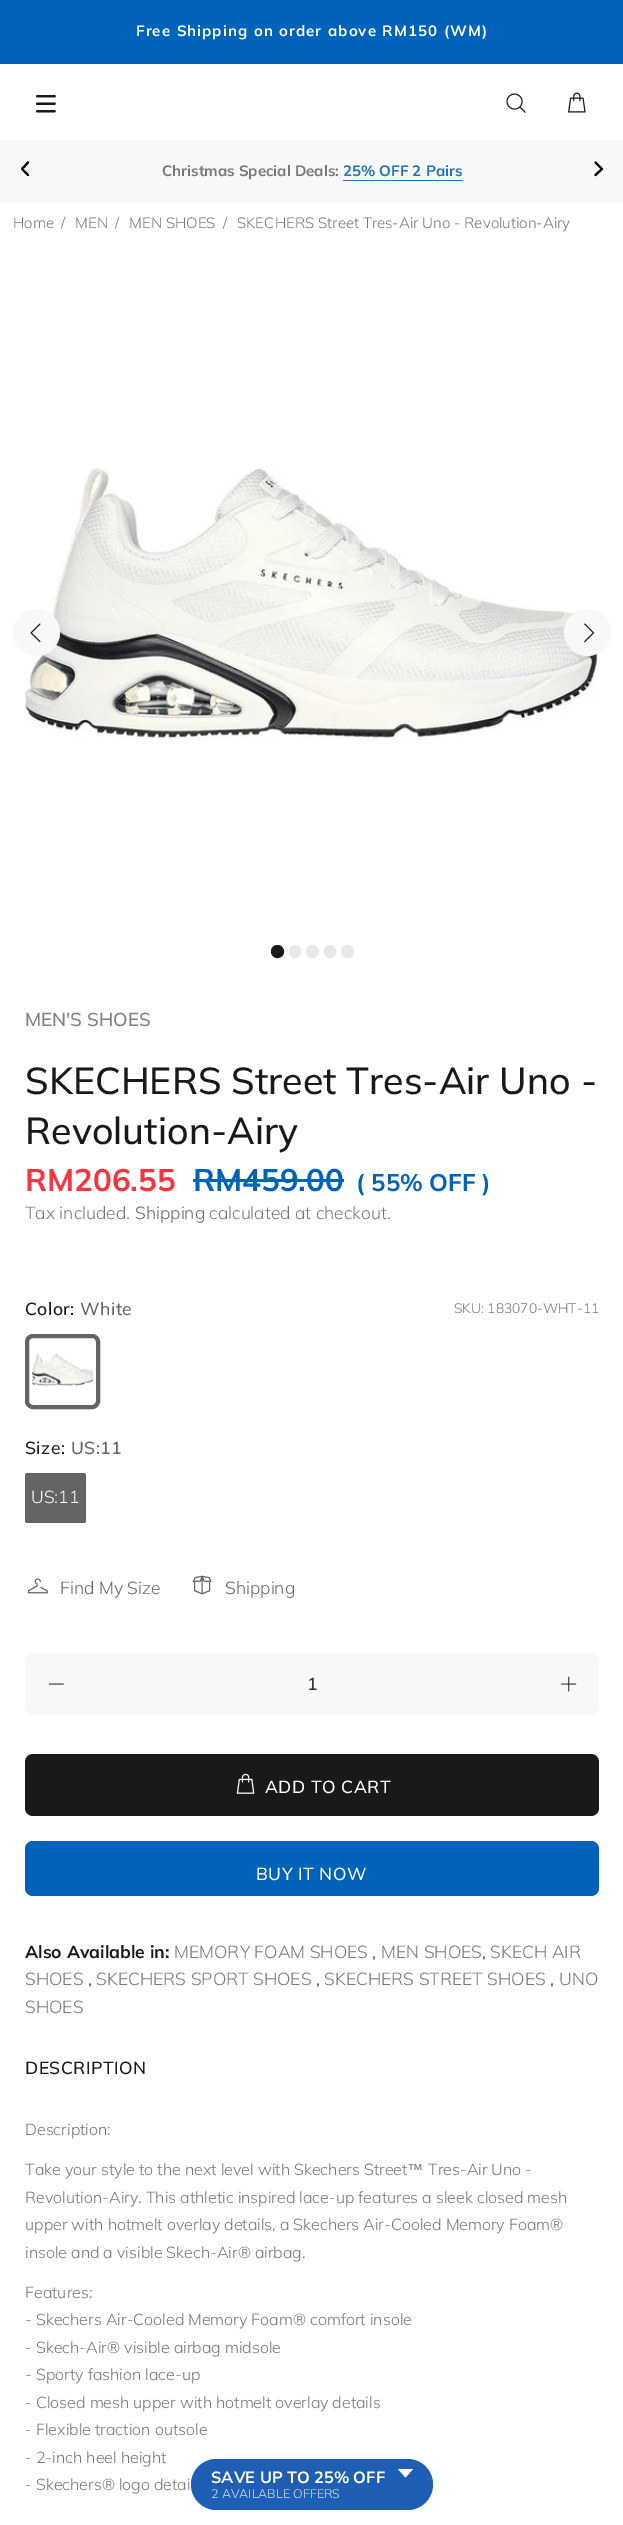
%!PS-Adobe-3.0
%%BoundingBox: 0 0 623 2525
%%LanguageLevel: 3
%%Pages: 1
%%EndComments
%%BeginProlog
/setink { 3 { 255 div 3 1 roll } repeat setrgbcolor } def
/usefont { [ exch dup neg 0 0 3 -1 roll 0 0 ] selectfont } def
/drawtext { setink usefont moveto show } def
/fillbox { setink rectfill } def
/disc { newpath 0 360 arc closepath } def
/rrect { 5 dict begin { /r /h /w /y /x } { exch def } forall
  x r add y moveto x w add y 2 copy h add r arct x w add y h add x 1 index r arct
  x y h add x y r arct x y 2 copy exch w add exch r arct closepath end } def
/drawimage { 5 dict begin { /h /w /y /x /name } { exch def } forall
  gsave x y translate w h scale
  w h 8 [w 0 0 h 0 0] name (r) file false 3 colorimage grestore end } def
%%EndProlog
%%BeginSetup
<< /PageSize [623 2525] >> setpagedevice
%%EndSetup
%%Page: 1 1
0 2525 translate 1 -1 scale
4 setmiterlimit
0 0 623 2525 255 255 255 fillbox
0 0 623 64 0 99 186 fillbox
/Mulish-Bold 15 usefont
255 255 255 setink
136 36 moveto 0.5 0 32 1 0 (Free Shipping on order above RM150 \(WM\)) awidthshow
(assets/img1.rgb) 35 95 21 18 drawimage
(assets/img2.rgb) 506 93 20 20 drawimage
(assets/img3.rgb) 568 92 18 21 drawimage
0 140 623 63 248 248 248 fillbox
0 0 0 setink
2.1 setlinewidth
1 setlinecap
1 setlinejoin
28 175 moveto 22 169 lineto 28 162.5 lineto stroke
(Christmas Special Deals:) 162 176 /Muli-Bold 15 119 119 119 drawtext
(25% OFF 2 Pairs) 343 176 /Muli-Bold 15 25 115 193 drawtext
343 180 120 1 25 115 193 fillbox
0 0 0 setink
595.5 175 moveto 602 169 lineto 595.5 162.5 lineto stroke
(Home) 13 228 /Muli-Light 15 119 119 119 drawtext
(/) 61 228 /Muli-Light 15 119 119 119 drawtext
(MEN) 75 228 /Muli-Light 15 119 119 119 drawtext
(/) 115 228 /Muli-Light 15 119 119 119 drawtext
(MEN SHOES) 129 228 /Muli-Light 15 119 119 119 drawtext
(/) 223 228 /Muli-Light 15 119 119 119 drawtext
(SKECHERS Street Tres-Air Uno - Revolution-Airy) 237 228 /Muli-Light 15 119 119 119 drawtext
(assets/img4.rgb) 24 468 578 272 drawimage
247 248 250 setink
36.5 632.5 23.5 disc fill
(assets/img5.rgb) 30 623 11 20 drawimage
587.5 632.5 23.5 disc fill
(assets/img6.rgb) 584 623 11 20 drawimage
25 25 25 setink
277.5 951.5 6 disc gsave fill grestore
1 setlinewidth
0 setlinecap
0 setlinejoin
stroke
233 231 231 setink
289.5 945.5 11 12 5.5 rrect gsave fill grestore
stroke
312.5 951.5 6 disc gsave fill grestore
stroke
324.5 945.5 11 12 5.5 rrect gsave fill grestore
stroke
347.5 951.5 6 disc gsave fill grestore
stroke
(MEN'S SHOES) 25 1026 /Mulish-Medium 18.75 128 128 128 drawtext
/Mulish-Medium 37.5 usefont
25 25 25 setink
25 1094 moveto 0.05 0 (SKECHERS Street Tres-Air Uno -) ashow
25 1144 moveto 0.05 0 (Revolution-Airy) ashow
(RM206.55) 25 1191 /Mulish-Bold 31.25 248 53 62 drawtext
(RM459.00) 193 1191 /Mulish-Bold 31.25 0 99 186 drawtext
193 1179 151 3 0 99 186 fillbox
(\( 55% OFF \)) 356 1191 /Mulish-Bold 24 0 99 186 drawtext
(Tax included.) 25 1219 /Muli-Light 17.5 119 119 119 drawtext
(Shipping) 135 1219 /Muli-Light 17.5 100 100 100 drawtext
(calculated at checkout.) 209 1219 /Muli-Light 17.5 119 119 119 drawtext
/Mulish-Medium 17.5 usefont
25 25 25 setink
25 1315 moveto 0.5 0 (Color:) ashow
100 100 100 setink
80 1315 moveto 0.5 0 (White) ashow
(assets/img7.rgb) 32 1353 61 35 drawimage
222 226 230 setink
25.5 1334.5 74 74 7.5 rrect stroke
255 255 255 setink
6 setlinewidth
29 1338 67 67 5 rrect stroke
100 100 100 setink
4 setlinewidth
27 1336 71 71 6 rrect stroke
25 25 25 setink
25 1454 moveto 0.5 0 (Size:) ashow
100 100 100 setink
71 1454 moveto 0.5 0 (US:11) ashow
25 1473 61 50 2.5 rrect fill
(US:11) 31 1503 /Muli-Light 17.5 255 255 255 drawtext
(SKU: 183070-WHT-11) 454 1313 /Muli-Light 13.75 119 119 119 drawtext
(assets/img8.rgb) 27 1578 21 16 drawimage
(Find My Size) 60 1594 /Muli-Light 17.5 100 100 100 drawtext
(assets/img9.rgb) 192 1575 20 20 drawimage
(Shipping) 225 1594 /Muli-Light 17.5 100 100 100 drawtext
247 248 250 setink
25 1653 574 62 8 rrect fill
(assets/img10.rgb) 49 1683 15 2 drawimage
(1) 307 1690 /Mulish-Medium 17.5 51 51 51 drawtext
(assets/img11.rgb) 561 1676 16 16 drawimage
25 25 25 setink
25 1754 574 62 8 rrect fill
(assets/img12.rgb) 236 1773 19 21 drawimage
255 255 255 setink
265 1793 moveto 0.5 0 (ADD TO CART) ashow
0 99 186 setink
25 1841 574 55 8 rrect fill
255 255 255 setink
256 1880 moveto 0.5 0 (BUY IT NOW) ashow
(Also Available in:) 25 1958 /Muli-Bold 17.5 25 25 25 drawtext
(MEMORY FOAM SHOES) 174 1958 /Muli-Light 17.5 119 119 119 drawtext
(,) 372 1958 /Muli-Light 17.5 25 25 25 drawtext
(MEN SHOES) 381 1958 /Muli-Light 17.5 119 119 119 drawtext
(,) 482 1958 /Muli-Light 17.5 25 25 25 drawtext
(SKECH AIR) 490 1958 /Muli-Light 17.5 119 119 119 drawtext
(SHOES) 25 1985 /Muli-Light 17.5 119 119 119 drawtext
(,) 88 1985 /Muli-Light 17.5 25 25 25 drawtext
(SKECHERS SPORT SHOES) 96 1985 /Muli-Light 17.5 119 119 119 drawtext
(,) 316 1985 /Muli-Light 17.5 25 25 25 drawtext
(SKECHERS STREET SHOES) 324 1985 /Muli-Light 17.5 119 119 119 drawtext
(,) 550 1985 /Muli-Light 17.5 25 25 25 drawtext
(UNO) 559 1985 /Muli-Light 17.5 119 119 119 drawtext
(SHOES) 25 2013 /Muli-Light 17.5 119 119 119 drawtext
/Mulish-Medium 17.5 usefont
25 25 25 setink
25 2074 moveto 0.5 0 (DESCRIPTION) ashow
(Description:) 25 2135 /Muli-Light 16 119 119 119 drawtext
(Take your style to the next level with Skechers Street) 25 2175 /Muli-Light 16 119 119 119 drawtext
(™) 407 2175 /LiberationSans-Regular 16 119 119 119 drawtext
(Tres-Air Uno -) 428 2175 /Muli-Light 16 119 119 119 drawtext
(Revolution-Airy. This athletic inspired lace-up features a sleek closed mesh) 25 2203 /Muli-Light 16 119 119 119 drawtext
(upper with hotmelt overlay details, a Skechers Air-Cooled Memory Foam®) 25 2230 /Muli-Light 16 119 119 119 drawtext
(insole and a visible Skech-Air® airbag.) 25 2258 /Muli-Light 16 119 119 119 drawtext
(Features:) 25 2298 /Muli-Light 16 119 119 119 drawtext
(- Skechers Air-Cooled Memory Foam® comfort insole) 25 2325 /Muli-Light 16 119 119 119 drawtext
(- Skech-Air® visible airbag midsole) 25 2353 /Muli-Light 16 119 119 119 drawtext
(- Sporty fashion lace-up) 25 2380 /Muli-Light 16 119 119 119 drawtext
(- Closed mesh upper with hotmelt overlay details) 25 2408 /Muli-Light 16 119 119 119 drawtext
(- Flexible traction outsole) 25 2435 /Muli-Light 16 119 119 119 drawtext
(- 2-inch heel height) 25 2463 /Muli-Light 16 119 119 119 drawtext
(- Skechers® logo detai) 25 2490 /Muli-Light 16 119 119 119 drawtext
30 95 181 setink
191 2459 242 51 25.5 rrect fill
(SAVE UP TO 25% OFF) 211 2483 /Muli-Bold 16.25 255 255 255 drawtext
(2 AVAILABLE OFFERS) 211 2498 /Muli-Light 12.5 221 231 244 drawtext
255 255 255 setink
398 2469 moveto 413 2469 lineto 405.5 2477.5 lineto closepath fill
showpage
%%EOF
